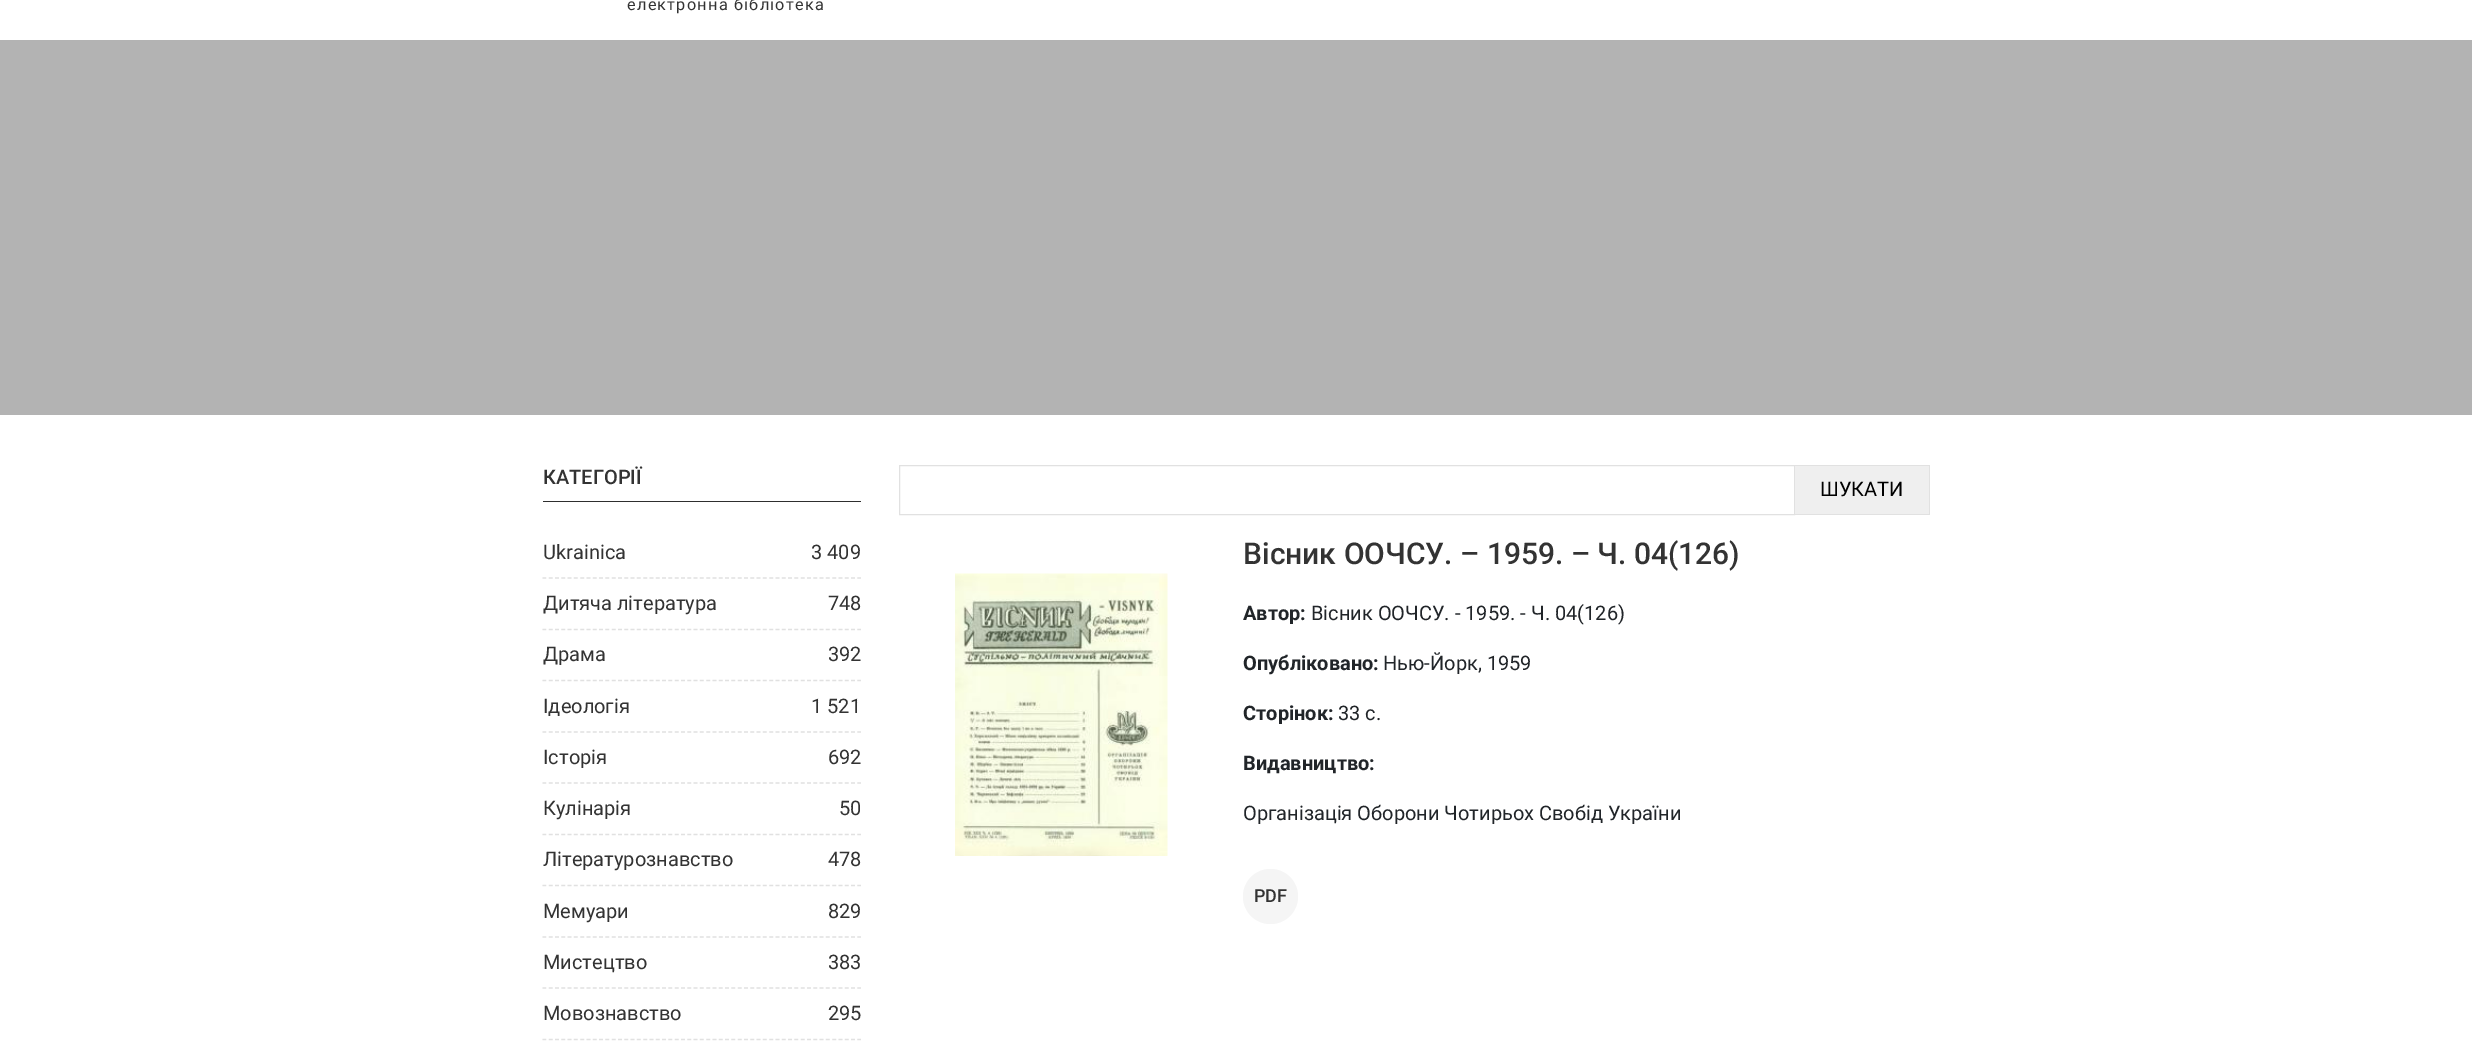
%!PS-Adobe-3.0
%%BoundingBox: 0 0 2472 1048
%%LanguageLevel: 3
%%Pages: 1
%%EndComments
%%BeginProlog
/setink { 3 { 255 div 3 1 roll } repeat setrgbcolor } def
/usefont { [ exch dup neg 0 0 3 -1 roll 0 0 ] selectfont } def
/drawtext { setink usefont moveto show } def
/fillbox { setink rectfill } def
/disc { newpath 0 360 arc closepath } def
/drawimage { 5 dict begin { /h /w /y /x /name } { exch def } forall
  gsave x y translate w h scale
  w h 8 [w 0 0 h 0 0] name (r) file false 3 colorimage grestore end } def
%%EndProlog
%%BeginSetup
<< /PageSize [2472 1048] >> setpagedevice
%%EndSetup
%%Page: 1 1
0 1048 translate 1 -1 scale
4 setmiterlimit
0 0 2472 1048 255 255 255 fillbox
/Roboto-Regular 16.25 usefont
51 51 51 setink
627 10 moveto 1.25 0 (електронна бібліотека) ashow
0 40 2472 375 179 179 179 fillbox
543 501 318 1 46 46 46 fillbox
(КАТЕГОРІЇ) 543 484 /Roboto-Medium 20 51 51 51 drawtext
225 225 225 setink
1.2 setlinewidth
[3.75 2.55] 0 setdash
542.5 578 moveto 861 578 lineto stroke
(Ukrainica) 543 559 /Roboto-Regular 20 51 51 51 drawtext
(3 409) 811 559 /Roboto-Regular 20 51 51 51 drawtext
225 225 225 setink
542.5 629.5 moveto 861 629.5 lineto stroke
(Дитяча література) 543 610 /Roboto-Regular 20 51 51 51 drawtext
(748) 828 610 /Roboto-Regular 20 51 51 51 drawtext
225 225 225 setink
542.5 680.5 moveto 861 680.5 lineto stroke
(Драма) 543 661 /Roboto-Regular 20 51 51 51 drawtext
(392) 828 661 /Roboto-Regular 20 51 51 51 drawtext
225 225 225 setink
542.5 732 moveto 861 732 lineto stroke
(Ідеологія) 543 713 /Roboto-Regular 20 51 51 51 drawtext
(1 521) 811 713 /Roboto-Regular 20 51 51 51 drawtext
225 225 225 setink
542.5 783 moveto 861 783 lineto stroke
(Історія) 543 764 /Roboto-Regular 20 51 51 51 drawtext
(692) 828 764 /Roboto-Regular 20 51 51 51 drawtext
225 225 225 setink
542.5 834.5 moveto 861 834.5 lineto stroke
(Кулінарія) 543 815 /Roboto-Regular 20 51 51 51 drawtext
(50) 839 815 /Roboto-Regular 20 51 51 51 drawtext
225 225 225 setink
542.5 885.5 moveto 861 885.5 lineto stroke
(Літературознавство) 543 866 /Roboto-Regular 20 51 51 51 drawtext
(478) 828 866 /Roboto-Regular 20 51 51 51 drawtext
225 225 225 setink
542.5 937 moveto 861 937 lineto stroke
(Мемуари) 543 918 /Roboto-Regular 20 51 51 51 drawtext
(829) 828 918 /Roboto-Regular 20 51 51 51 drawtext
225 225 225 setink
542.5 988 moveto 861 988 lineto stroke
(Мистецтво) 543 969 /Roboto-Regular 20 51 51 51 drawtext
(383) 828 969 /Roboto-Regular 20 51 51 51 drawtext
225 225 225 setink
542.5 1039.5 moveto 861 1039.5 lineto stroke
(Мовознавство) 543 1020 /Roboto-Regular 20 51 51 51 drawtext
(295) 828 1020 /Roboto-Regular 20 51 51 51 drawtext
225 225 225 setink
1 setlinewidth
[] 0 setdash
899.5 465.5 895 49 rectstroke
1795 466 134 48 239 239 239 fillbox
1795 465 135 1 225 225 225 fillbox
1929 465 1 50 225 225 225 fillbox
1795 514 135 1 225 225 225 fillbox
(ШУКАТИ) 1820 496 /Roboto-Regular 20 0 0 0 drawtext
(assets/img1.rgb) 955 573 213 283 drawimage
(Вісник ООЧСУ. – 1959. – Ч. 04\(126\)) 1243 564 /Roboto-Medium 30 51 51 51 drawtext
(Автор:) 1243 620 /Roboto-Bold 20 33 37 41 drawtext
(Вісник ООЧСУ. - 1959. - Ч. 04\(126\)) 1311 620 /Roboto-Regular 20 33 37 41 drawtext
(Опубліковано:) 1243 670 /Roboto-Bold 20 33 37 41 drawtext
(Нью-Йорк, 1959) 1383 670 /Roboto-Regular 20 33 37 41 drawtext
(Сторінок:) 1243 720 /Roboto-Bold 20 33 37 41 drawtext
(33 с.) 1338 720 /Roboto-Regular 20 33 37 41 drawtext
(Видавництво:) 1243 770 /Roboto-Bold 20 33 37 41 drawtext
(Організація Оборони Чотирьох Свобід України) 1243 820 /Roboto-Regular 20 33 37 41 drawtext
245 245 245 setink
1270.5 896.5 27.5 disc fill
(PDF) 1254 902 /Roboto-Medium 18 51 51 51 drawtext
showpage
%%EOF
